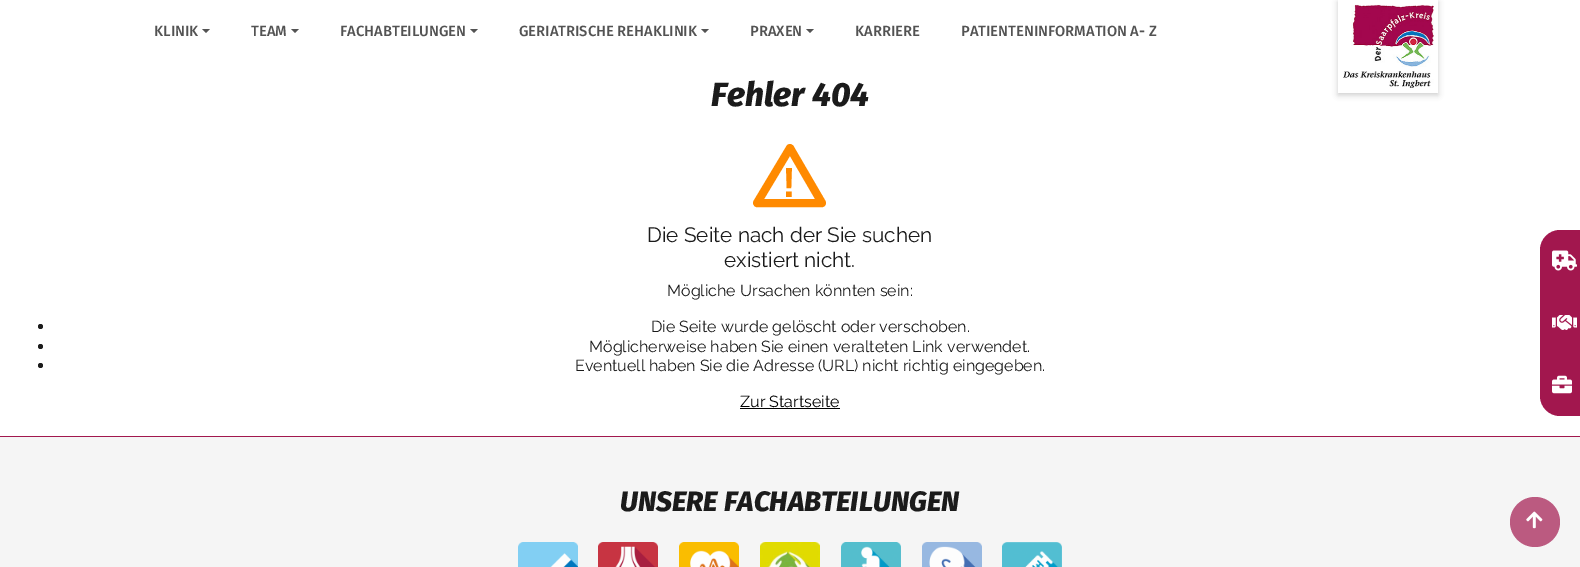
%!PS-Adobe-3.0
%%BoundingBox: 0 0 1580 567
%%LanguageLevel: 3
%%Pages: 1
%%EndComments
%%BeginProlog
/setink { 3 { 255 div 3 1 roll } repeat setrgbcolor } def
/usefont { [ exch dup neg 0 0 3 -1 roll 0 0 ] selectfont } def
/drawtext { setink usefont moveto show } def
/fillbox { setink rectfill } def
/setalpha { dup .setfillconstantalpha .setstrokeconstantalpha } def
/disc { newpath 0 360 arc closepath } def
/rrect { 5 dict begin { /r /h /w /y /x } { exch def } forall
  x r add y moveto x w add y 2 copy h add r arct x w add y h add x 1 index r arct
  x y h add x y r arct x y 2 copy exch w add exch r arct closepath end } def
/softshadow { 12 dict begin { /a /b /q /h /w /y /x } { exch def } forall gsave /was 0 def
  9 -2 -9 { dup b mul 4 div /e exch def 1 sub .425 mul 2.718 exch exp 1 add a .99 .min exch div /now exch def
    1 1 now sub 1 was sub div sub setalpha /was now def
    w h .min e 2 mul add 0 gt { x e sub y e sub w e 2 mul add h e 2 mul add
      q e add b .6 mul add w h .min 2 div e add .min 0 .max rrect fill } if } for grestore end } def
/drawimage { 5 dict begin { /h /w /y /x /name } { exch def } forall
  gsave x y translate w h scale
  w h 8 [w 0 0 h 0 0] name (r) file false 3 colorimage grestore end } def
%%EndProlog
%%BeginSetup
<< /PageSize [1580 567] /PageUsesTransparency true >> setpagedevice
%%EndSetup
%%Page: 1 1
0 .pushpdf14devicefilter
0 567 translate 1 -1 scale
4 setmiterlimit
0 0 1580 567 255 255 255 fillbox
(KLINIK) 154 36 /FiraSans-Medium 14.75 83 83 83 drawtext
202 29 moveto 210 29 lineto 206 33 lineto closepath fill
(TEAM) 251 36 /FiraSans-Medium 14.75 83 83 83 drawtext
291 29 moveto 299 29 lineto 295 33 lineto closepath fill
(FACHABTEILUNGEN) 340 36 /FiraSans-Medium 14.75 83 83 83 drawtext
470 29 moveto 478 29 lineto 474 33 lineto closepath fill
(GERIATRISCHE REHAKLINIK) 519 36 /FiraSans-Medium 14.75 83 83 83 drawtext
701 29 moveto 709 29 lineto 705 33 lineto closepath fill
(PRAXEN) 750 36 /FiraSans-Medium 14.75 83 83 83 drawtext
806 29 moveto 814 29 lineto 810 33 lineto closepath fill
(KARRIERE) 855 36 /FiraSans-Medium 14.75 83 83 83 drawtext
(PATIENTENINFORMATION A- Z) 961 36 /FiraSans-Medium 14.75 83 83 83 drawtext
gsave
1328 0 moveto 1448 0 lineto 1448 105 lineto 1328 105 lineto closepath 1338 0 moveto 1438 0 lineto 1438 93 lineto 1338 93 lineto closepath eoclip newpath
0 0 0 setink
1338 2 100 93 0 3 0.2 softshadow
grestore
(assets/img1.rgb) 1343 4 91 84 drawimage
(Fehler 404) 711 106 /FiraSans-ExtraBoldItalic 33.5 27 27 27 drawtext
255 138 0 setink
8 setlinewidth
1 setlinejoin
790 148 moveto 757 203 lineto 822 203 lineto closepath stroke
(!) 782 197 /LiberationSans-Bold 42 255 138 0 drawtext
(Die Seite nach der Sie suchen) 647 242 /Raleway-Thin 20.75 27 27 27 drawtext
(existiert nicht.) 724 267 /Raleway-Thin 20.75 27 27 27 drawtext
(Mögliche Ursachen könnten sein:) 667 296 /Raleway-Thin 16 27 27 27 drawtext
40.5 326.5 2.5 disc fill
(Die Seite wurde gelöscht oder verschoben.) 651 332 /Raleway-Thin 16 27 27 27 drawtext
40.5 346.5 2.5 disc fill
(Möglicherweise haben Sie einen veralteten Link verwendet.) 589 352 /Raleway-Thin 16 27 27 27 drawtext
40.5 365.5 2.5 disc fill
(Eventuell haben Sie die Adresse \(URL\) nicht richtig eingegeben.) 575 371 /Raleway-Thin 16 27 27 27 drawtext
(Zur Startseite) 740 407 /Raleway-Thin 16 0 0 0 drawtext
740 408 100 1 0 0 0 fillbox
162 23 78 setink
1560 230 moveto 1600 230 lineto 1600 292 lineto 1540 292 lineto 1540 250 lineto 1540 239 1549 230 1560 230 curveto closepath fill
(assets/img2.rgb) 1552 250 25 21 drawimage
1540 292 40 62 162 23 78 fillbox
(assets/img3.rgb) 1552 315 25 15 drawimage
1540 354 moveto 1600 354 lineto 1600 416 lineto 1560 416 lineto 1549 416 1540 407 1540 396 curveto closepath fill
(assets/img4.rgb) 1552 375 20 19 drawimage
0 436 1580 1 162 23 78 fillbox
0 437 1580 130 245 245 245 fillbox
(UNSERE FACHABTEILUNGEN) 620 511 /FiraSans-ExtraBoldItalic 28 27 27 27 drawtext
(assets/img5.rgb) 518 542 60 25 drawimage
(assets/img6.rgb) 598 542 60 25 drawimage
(assets/img7.rgb) 679 542 60 25 drawimage
(assets/img8.rgb) 760 542 60 25 drawimage
(assets/img9.rgb) 841 542 60 25 drawimage
(assets/img10.rgb) 922 542 60 25 drawimage
(assets/img11.rgb) 1002 542 60 25 drawimage
187 90 128 setink
1535 522 25 disc fill
(assets/img12.rgb) 1526 511 17 18 drawimage
.poppdf14devicefilter showpage
%%EOF
